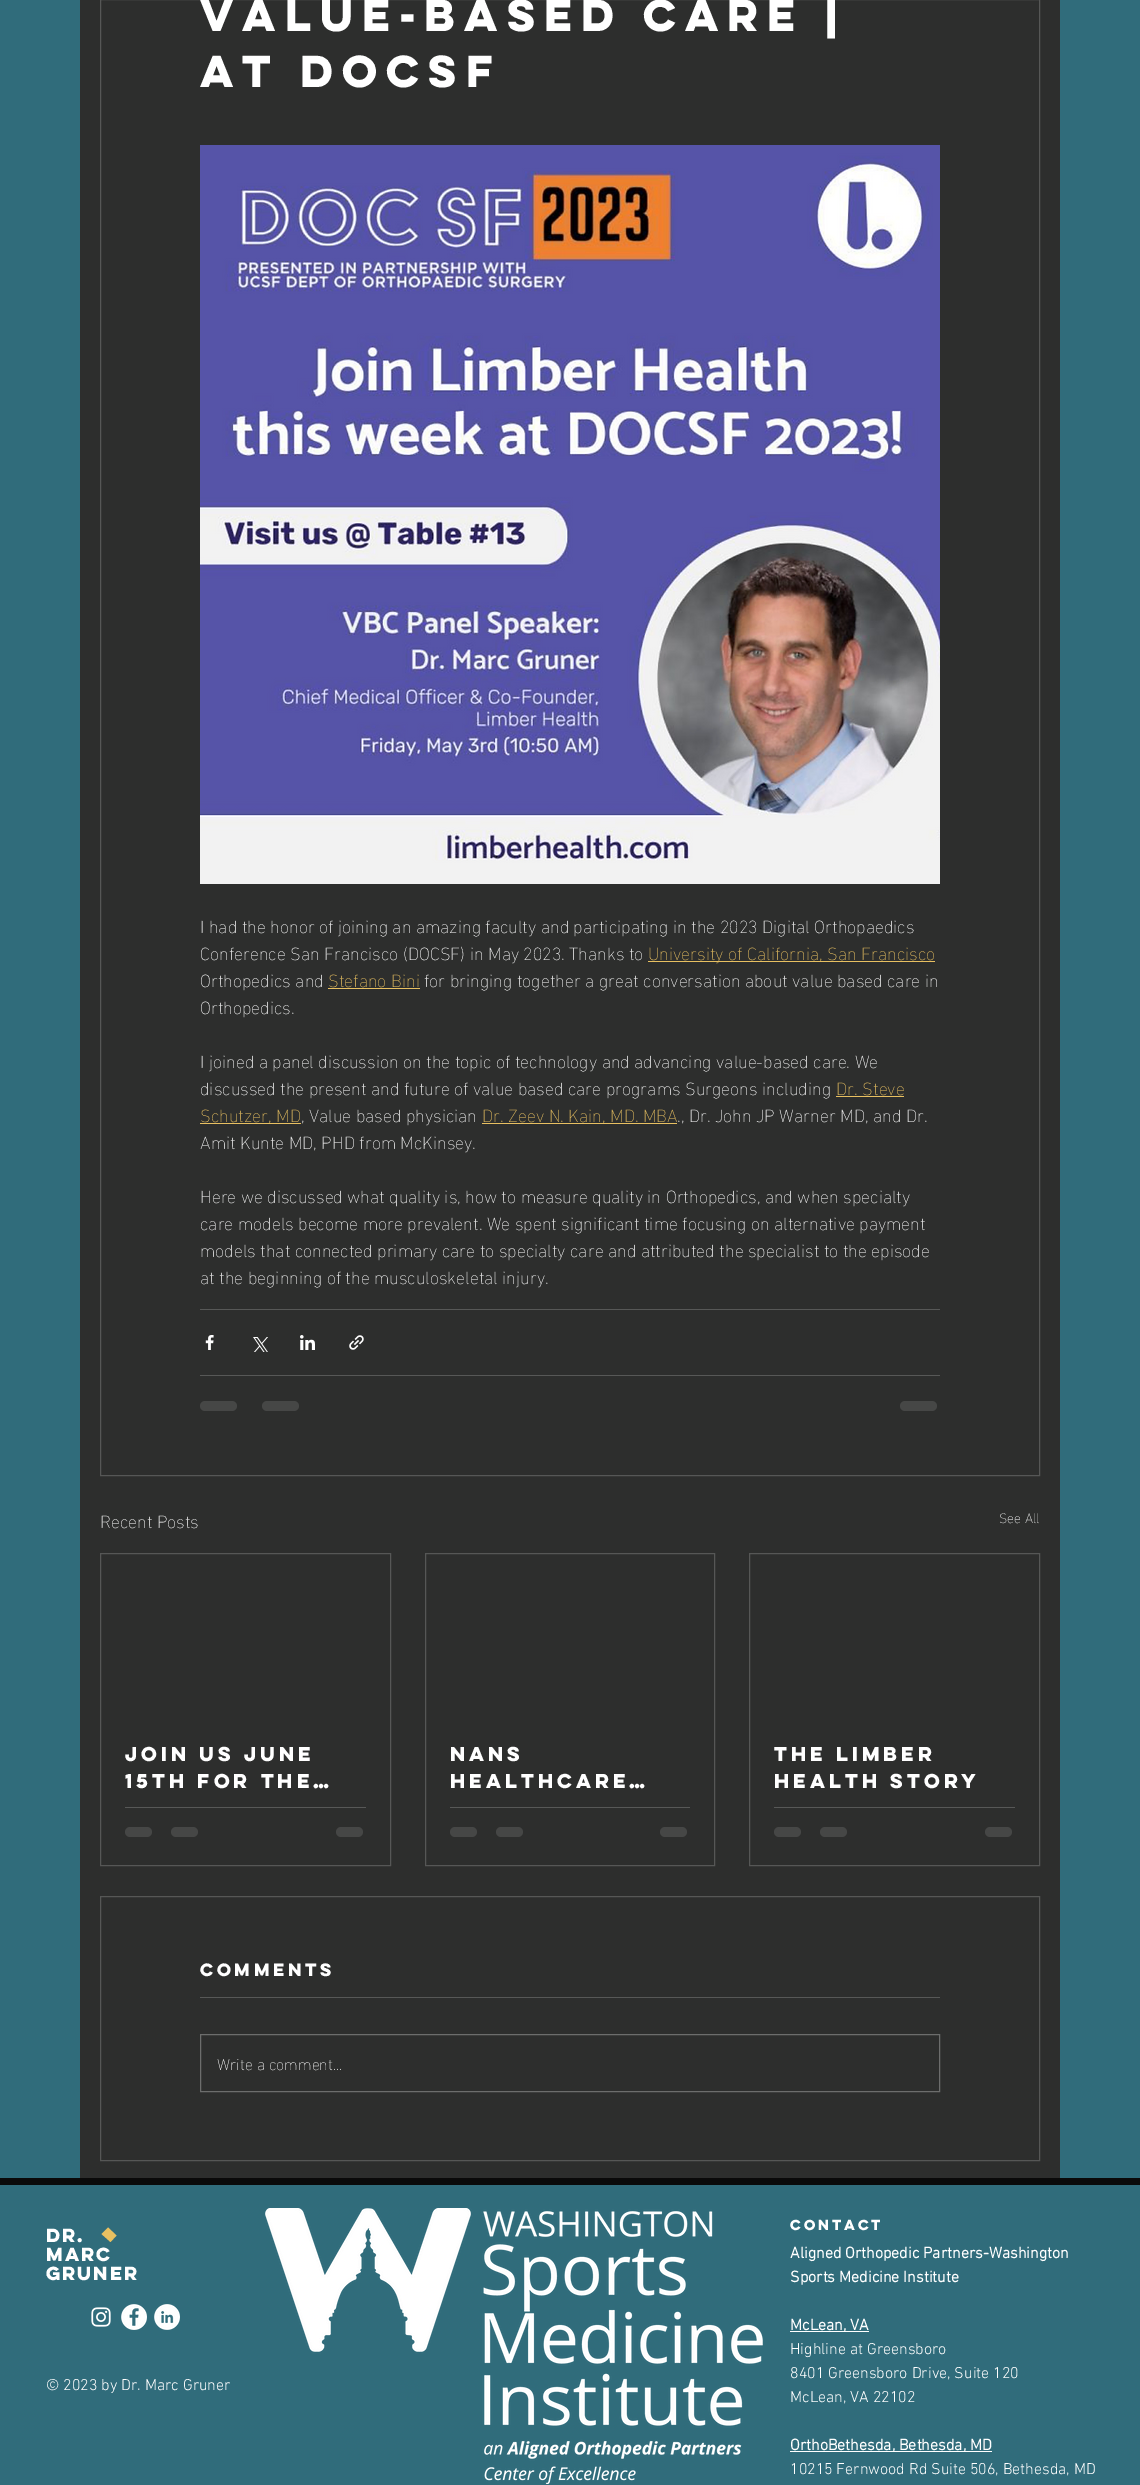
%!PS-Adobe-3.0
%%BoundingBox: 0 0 1140 2485
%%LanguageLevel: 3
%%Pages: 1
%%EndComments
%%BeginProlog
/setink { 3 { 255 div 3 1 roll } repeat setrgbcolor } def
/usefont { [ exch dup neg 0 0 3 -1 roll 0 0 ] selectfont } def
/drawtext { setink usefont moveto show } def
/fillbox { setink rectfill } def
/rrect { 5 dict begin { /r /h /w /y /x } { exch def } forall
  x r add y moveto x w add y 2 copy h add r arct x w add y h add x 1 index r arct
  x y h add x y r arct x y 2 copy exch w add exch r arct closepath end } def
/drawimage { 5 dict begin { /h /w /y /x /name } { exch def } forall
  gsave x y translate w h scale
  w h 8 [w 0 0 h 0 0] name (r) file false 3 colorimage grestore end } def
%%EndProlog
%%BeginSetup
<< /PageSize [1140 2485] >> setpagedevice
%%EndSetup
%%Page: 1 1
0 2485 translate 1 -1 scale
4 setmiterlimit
0 0 1140 2485 48 108 123 fillbox
80 0 980 2178 45 46 45 fillbox
86 87 86 setink
100.5 -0.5 939 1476 rectstroke
(Value-Based Care |) 200 31 /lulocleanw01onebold-Bold 40 255 255 255 drawtext
(At DOCSF) 200 87 /lulocleanw01onebold-Bold 40 255 255 255 drawtext
(assets/img1.rgb) 200 145 740 739 drawimage
(I had the honor of joining an amazing faculty and participating in the 2023 Digital Orthopaedics) 200 933 /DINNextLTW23-ExtraLight 18 255 255 255 drawtext
(Conference San Francisco \(DOCSF\) in May 2023. Thanks to) 200 960 /DINNextLTW23-ExtraLight 18 255 255 255 drawtext
648 961 287 1 232 192 97 fillbox
(University of California, San Francisco) 648 960 /DINNextLTW23-ExtraLight 18 232 192 97 drawtext
(Orthopedics and) 200 987 /DINNextLTW23-ExtraLight 18 255 255 255 drawtext
(Stefano Bini) 328 987 /DINNextLTW23-ExtraLight 18 232 192 97 drawtext
328 988 92 1 232 192 97 fillbox
(for bringing together a great conversation about value based care in) 424 987 /DINNextLTW23-ExtraLight 18 255 255 255 drawtext
(Orthopedics.) 200 1014 /DINNextLTW23-ExtraLight 18 255 255 255 drawtext
(I joined a panel discussion on the topic of technology and advancing value-based care. We) 200 1068 /DINNextLTW23-ExtraLight 18 255 255 255 drawtext
(discussed the present and future of value based care programs Surgeons including) 200 1095 /DINNextLTW23-ExtraLight 18 255 255 255 drawtext
(Dr. Steve) 836 1095 /DINNextLTW23-ExtraLight 18 232 192 97 drawtext
836 1096 68 1 232 192 97 fillbox
200 1123 101 1 232 192 97 fillbox
(Schutzer, MD) 200 1122 /DINNextLTW23-ExtraLight 18 232 192 97 drawtext
(, Value based physician) 301 1122 /DINNextLTW23-ExtraLight 18 255 255 255 drawtext
482 1123 195 1 232 192 97 fillbox
(Dr. Zeev N. Kain, MD. MBA) 482 1122 /DINNextLTW23-ExtraLight 18 232 192 97 drawtext
(., Dr. John JP Warner MD, and Dr.) 677 1122 /DINNextLTW23-ExtraLight 18 255 255 255 drawtext
(Amit Kunte MD, PHD from McKinsey.) 200 1149 /DINNextLTW23-ExtraLight 18 255 255 255 drawtext
(Here we discussed what quality is, how to measure quality in Orthopedics, and when specialty) 200 1203 /DINNextLTW23-ExtraLight 18 255 255 255 drawtext
(care models become more prevalent. We spent significant time focusing on alternative payment) 200 1230 /DINNextLTW23-ExtraLight 18 255 255 255 drawtext
(models that connected primary care to specialty care and attributed the specialist to the episode) 200 1257 /DINNextLTW23-ExtraLight 18 255 255 255 drawtext
(at the beginning of the musculoskeletal injury.) 200 1284 /DINNextLTW23-ExtraLight 18 255 255 255 drawtext
200 1309 740 1 87 88 87 fillbox
(assets/img2.rgb) 205 1335 9 15 drawimage
(assets/img3.rgb) 253 1337 15 15 drawimage
(assets/img4.rgb) 300 1335 15 15 drawimage
(assets/img5.rgb) 349 1335 15 15 drawimage
200 1375 740 1 87 88 87 fillbox
70 71 70 setink
200 1401 37 10 5 rrect fill
262 1401 37 10 5 rrect fill
900 1401 37 10 5 rrect fill
(Recent Posts) 100 1528 /DINNextLTW23-ExtraLight 18 255 255 255 drawtext
(See All) 999 1523 /DINNextLTW23-ExtraLight 14 255 255 255 drawtext
86 87 86 setink
100.5 1553.5 290 312 rectstroke
(Join us June) 125 1761 /lulocleanw01onebold-Bold 18 255 255 255 drawtext
(15th for the…) 125 1788 /lulocleanw01onebold-Bold 18 255 255 255 drawtext
125 1807 241 1 87 88 87 fillbox
70 71 70 setink
125 1827 27 10 5 rrect fill
171 1827 27 10 5 rrect fill
336 1827 27 10 5 rrect fill
86 87 86 setink
425.5 1553.5 289 312 rectstroke
(NANS) 450 1761 /lulocleanw01onebold-Bold 18 255 255 255 drawtext
(Healthcare…) 450 1788 /lulocleanw01onebold-Bold 18 255 255 255 drawtext
450 1807 240 1 87 88 87 fillbox
70 71 70 setink
450 1827 27 10 5 rrect fill
496 1827 27 10 5 rrect fill
660 1827 27 10 5 rrect fill
86 87 86 setink
749.5 1553.5 290 312 rectstroke
(The Limber) 774 1761 /lulocleanw01onebold-Bold 18 255 255 255 drawtext
(Health Story) 774 1788 /lulocleanw01onebold-Bold 18 255 255 255 drawtext
774 1807 241 1 87 88 87 fillbox
70 71 70 setink
774 1827 27 10 5 rrect fill
820 1827 27 10 5 rrect fill
985 1827 27 10 5 rrect fill
86 87 86 setink
100.5 1896.5 939 264 rectstroke
(Comments) 200 1976 /lulocleanw01onebold-Bold 16 255 255 255 drawtext
200 1997 740 1 87 88 87 fillbox
108 109 108 setink
200.5 2034.5 739 57 rectstroke
(Write a comment...) 217 2070 /DINNextLTW23-ExtraLight 16 255 255 255 drawtext
0 2178 1140 7 10 10 10 fillbox
(assets/img6.rgb) 265 2208 498 276 drawimage
232 192 97 setink
116.5 2235.5 moveto 110.5 2242 lineto 101.5 2234 lineto 108 2227.5 lineto closepath fill
/lulocleanw01onebold-Bold 17 usefont
255 255 255 setink
46 2242 moveto -1.75 0 (Dr.) ashow
46 2261 moveto -1.75 0 (Marc) ashow
46 2280 moveto -1.75 0 (Gruner) ashow
(assets/img7.rgb) 91 2307 20 20 drawimage
(assets/img8.rgb) 121 2304 26 26 drawimage
(assets/img9.rgb) 154 2304 26 26 drawimage
(© 2023 by Dr. Marc Gruner) 46 2390 /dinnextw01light-Light 16 255 255 255 drawtext
(contact) 790 2230 /lulocleanw01onebold-Bold 13 255 255 255 drawtext
(Aligned Orthopedic Partners-Washington) 790 2258 /dinnextw01light-Bold 16 255 255 255 drawtext
(Sports Medicine Institute) 790 2282 /dinnextw01light-Bold 16 255 255 255 drawtext
790 2331 79 1 255 255 255 fillbox
(McLean, VA) 790 2330 /dinnextw01light-Bold 16 255 255 255 drawtext
(Highline at Greensboro) 790 2354 /dinnextw01light-Light 16 255 255 255 drawtext
(8401 Greensboro Drive, Suite 120) 790 2378 /dinnextw01light-Light 16 255 255 255 drawtext
(McLean, VA 22102) 790 2402 /dinnextw01light-Light 16 255 255 255 drawtext
790 2451 202 1 255 255 255 fillbox
(OrthoBethesda, Bethesda, MD) 790 2450 /dinnextw01light-Bold 16 255 255 255 drawtext
(10215 Fernwood Rd Suite 506, Bethesda, MD) 790 2474 /dinnextw01light-Light 16 255 255 255 drawtext
showpage
%%EOF
